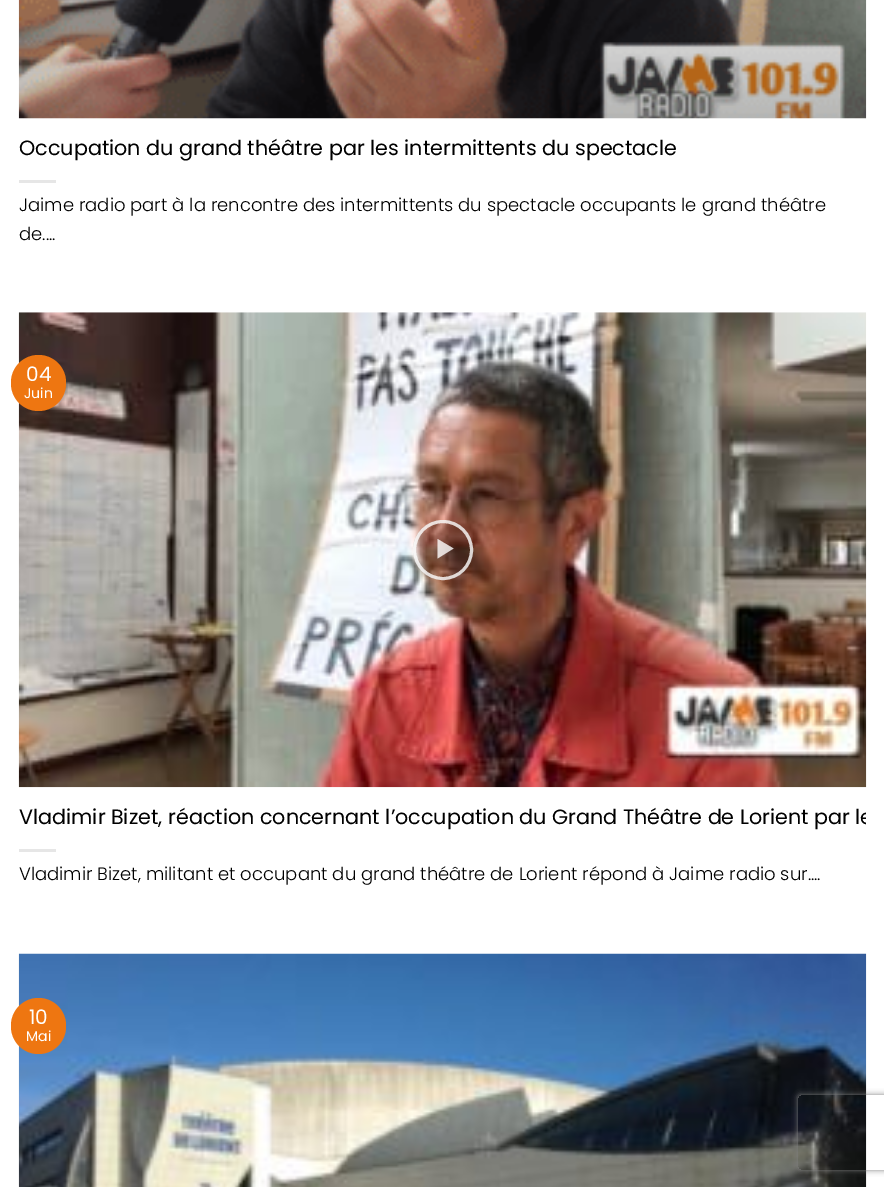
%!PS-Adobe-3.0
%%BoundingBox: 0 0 884 1187
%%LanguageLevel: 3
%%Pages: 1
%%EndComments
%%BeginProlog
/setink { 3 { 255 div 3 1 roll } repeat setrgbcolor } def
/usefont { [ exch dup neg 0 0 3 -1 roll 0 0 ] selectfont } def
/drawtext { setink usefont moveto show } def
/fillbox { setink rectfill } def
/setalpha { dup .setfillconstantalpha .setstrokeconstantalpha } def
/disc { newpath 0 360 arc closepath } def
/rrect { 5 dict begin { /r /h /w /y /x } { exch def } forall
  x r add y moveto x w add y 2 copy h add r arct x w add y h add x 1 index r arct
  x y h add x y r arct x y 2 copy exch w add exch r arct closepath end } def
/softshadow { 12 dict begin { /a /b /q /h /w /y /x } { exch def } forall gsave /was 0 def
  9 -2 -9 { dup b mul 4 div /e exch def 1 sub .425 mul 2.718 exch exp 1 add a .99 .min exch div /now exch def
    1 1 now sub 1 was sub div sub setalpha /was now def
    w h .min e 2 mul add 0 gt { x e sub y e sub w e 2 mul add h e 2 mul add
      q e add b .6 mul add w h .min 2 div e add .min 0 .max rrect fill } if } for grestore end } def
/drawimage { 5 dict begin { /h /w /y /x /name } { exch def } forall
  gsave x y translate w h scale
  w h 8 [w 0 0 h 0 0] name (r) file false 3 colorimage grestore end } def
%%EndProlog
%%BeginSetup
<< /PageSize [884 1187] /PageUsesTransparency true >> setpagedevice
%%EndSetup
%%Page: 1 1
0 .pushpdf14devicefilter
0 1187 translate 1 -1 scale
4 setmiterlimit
0 0 884 1187 255 255 255 fillbox
(assets/img1.rgb) 18 0 849 119 drawimage
(Occupation du grand théâtre par les intermittents du spectacle) 19 155 /Poppins-Regular 20.7 0 0 0 drawtext
19 180 37 3 230 230 230 fillbox
(Jaime radio part à la rencontre des intermittents du spectacle occupants le grand théâtre) 19 211 /Poppins-Light 18 0 0 0 drawtext
(de....) 19 240 /Poppins-Light 18 0 0 0 drawtext
(assets/img2.rgb) 18 312 849 476 drawimage
0.16 setalpha
443 550 30 disc fill
0.8 setalpha
255 255 255 setink
3 setlinewidth
443 550 28.5 disc stroke
437.5 539 moveto 453.5 548.5 lineto 437.5 558.5 lineto closepath fill
1 setalpha
238 118 17 setink
11 355 55 56 27.5 rrect fill
(04) 26 381 /Poppins-Regular 20 255 255 255 drawtext
(Juin) 24 398 /Poppins-Regular 14 255 255 255 drawtext
gsave
19 804 847 27 rectclip
(Vladimir Bizet, réaction concernant l’occupation du Grand Théâtre de Lorient par le) 19 824 /Poppins-Regular 20.7 0 0 0 drawtext
grestore
19 849 37 3 230 230 230 fillbox
(Vladimir Bizet, militant et occupant du grand théâtre de Lorient répond à Jaime radio sur....) 19 880 /Poppins-Light 18 0 0 0 drawtext
(assets/img3.rgb) 18 953 849 234 drawimage
238 118 17 setink
11 998 55 56 27.5 rrect fill
(10) 29 1024 /Poppins-Regular 20 255 255 255 drawtext
(Mai) 26 1041 /Poppins-Regular 14 255 255 255 drawtext
gsave
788 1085 moveto 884 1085 lineto 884 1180 lineto 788 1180 lineto closepath 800.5 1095 moveto 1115.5 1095 lineto 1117 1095 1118 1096 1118 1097.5 curveto 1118 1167.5 lineto 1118 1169 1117 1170 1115.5 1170 curveto 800.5 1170 lineto 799 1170 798 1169 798 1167.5 curveto 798 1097.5 lineto 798 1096 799 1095 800.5 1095 curveto closepath eoclip newpath
128 128 128 setink
798 1095 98 75 2.5 3 1 softshadow
grestore
.poppdf14devicefilter showpage
%%EOF
